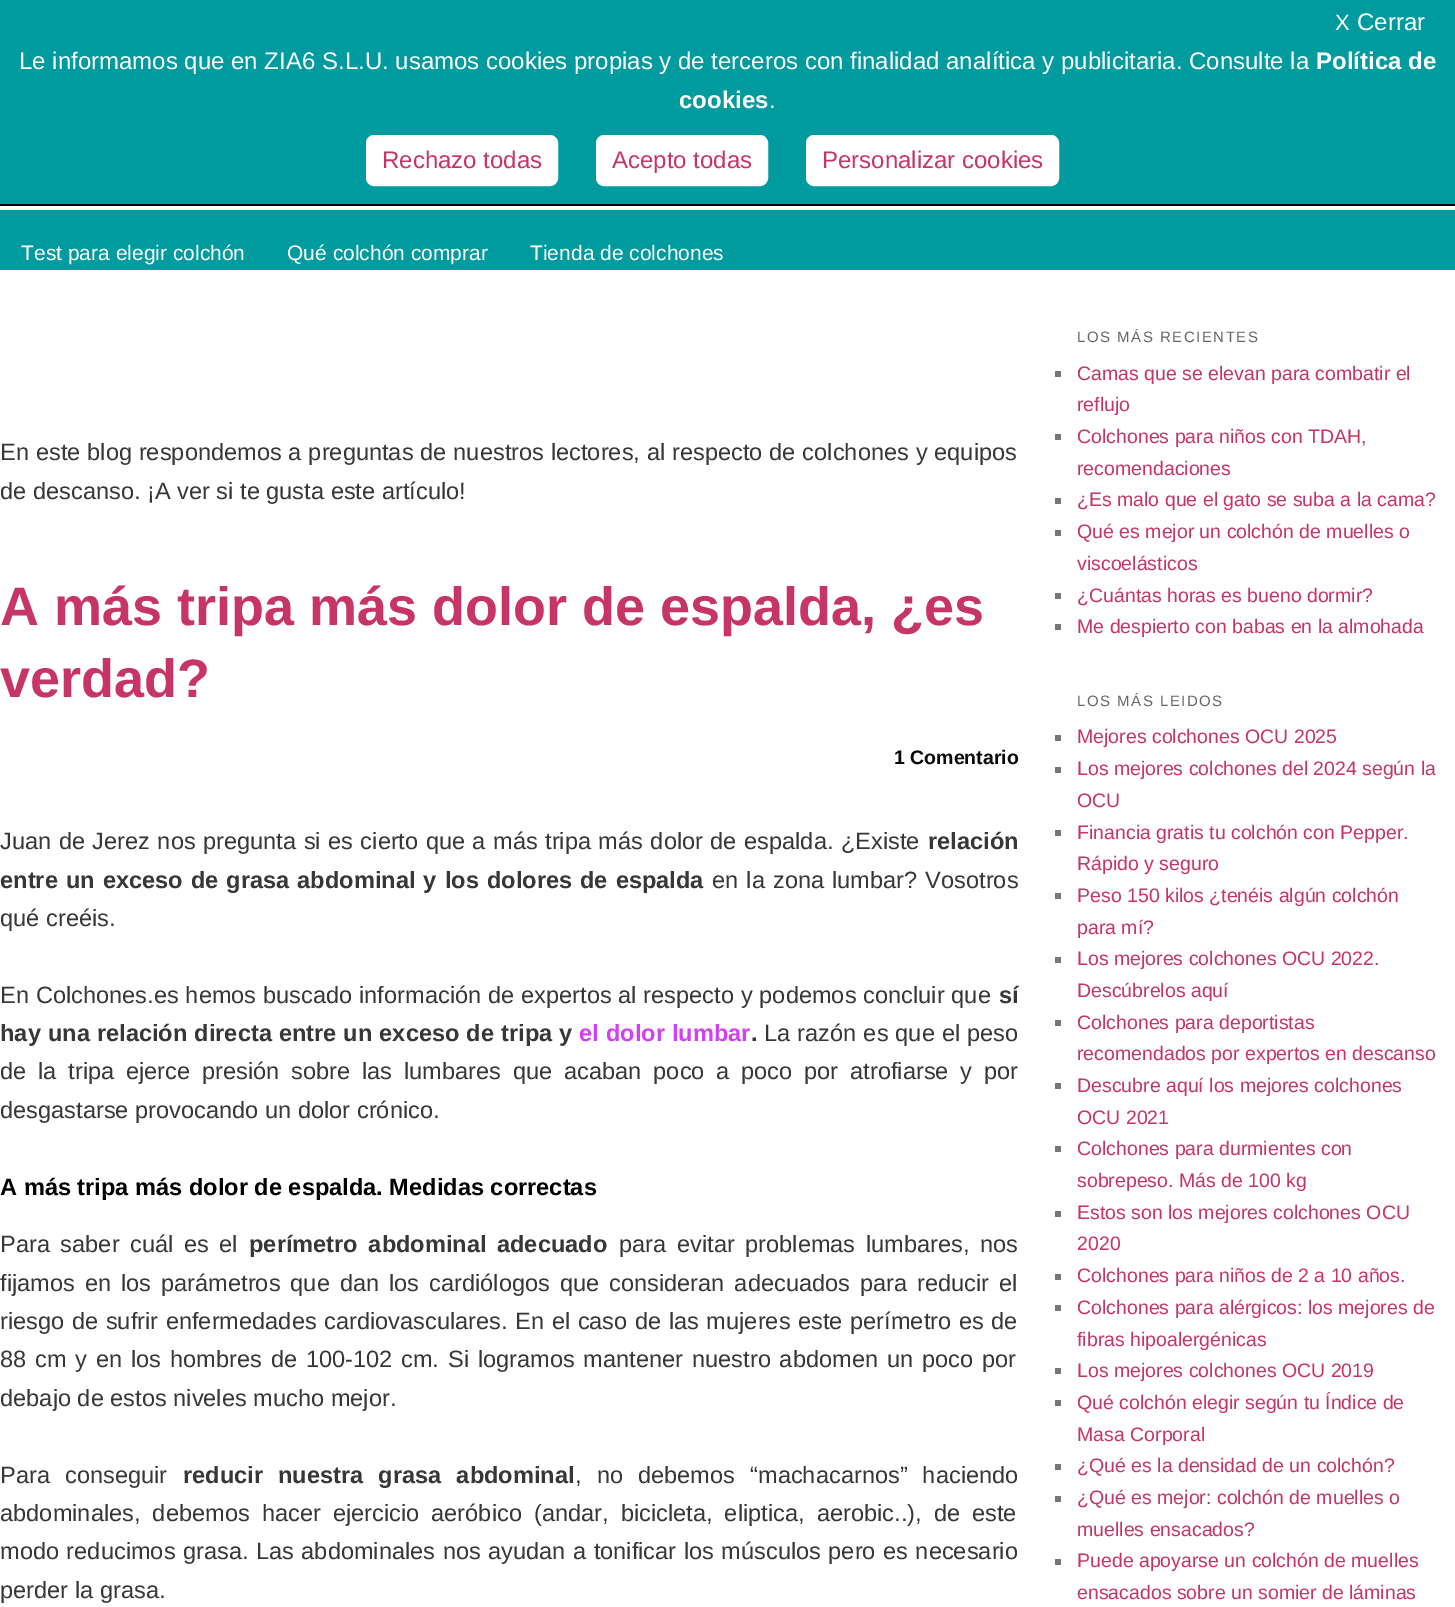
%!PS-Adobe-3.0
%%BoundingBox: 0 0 1455 1607
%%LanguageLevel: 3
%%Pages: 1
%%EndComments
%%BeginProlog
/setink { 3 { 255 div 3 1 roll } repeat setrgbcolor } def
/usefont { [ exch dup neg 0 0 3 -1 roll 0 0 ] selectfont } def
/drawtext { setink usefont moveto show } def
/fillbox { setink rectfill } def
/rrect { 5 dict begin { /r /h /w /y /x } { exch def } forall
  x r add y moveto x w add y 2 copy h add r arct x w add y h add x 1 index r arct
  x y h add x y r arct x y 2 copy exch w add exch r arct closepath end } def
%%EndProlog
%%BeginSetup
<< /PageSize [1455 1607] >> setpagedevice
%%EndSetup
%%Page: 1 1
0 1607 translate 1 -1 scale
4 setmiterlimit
0 0 1455 1607 255 255 255 fillbox
0 0 1455 204 0 155 159 fillbox
0 204 1455 2 0 0 0 fillbox
(X) 1335 30 /LiberationSans-Regular 22 255 255 255 drawtext
(Cerrar) 1357 30 /LiberationSans-Regular 24 255 255 255 drawtext
(Le informamos que en ZIA6 S.L.U. usamos cookies propias y de terceros con finalidad analítica y publicitaria. Consulte la) 19 69 /LiberationSans-Regular 24 255 255 255 drawtext
(Política de) 1316 69 /LiberationSans-Bold 24 255 255 255 drawtext
(cookies) 679 108 /LiberationSans-Bold 24 255 255 255 drawtext
(.) 769 108 /LiberationSans-Regular 24 255 255 255 drawtext
367 136 190 49 7 rrect gsave fill grestore
2 setlinewidth
stroke
(Rechazo todas) 382 168 /LiberationSans-Regular 24 199 53 102 drawtext
255 255 255 setink
597 136 170 49 7 rrect gsave fill grestore
stroke
(Acepto todas) 612 168 /LiberationSans-Regular 24 199 53 102 drawtext
255 255 255 setink
807 136 251 49 7 rrect gsave fill grestore
stroke
(Personalizar cookies) 822 168 /LiberationSans-Regular 24 199 53 102 drawtext
0 210 1455 60 0 155 159 fillbox
(Test para elegir colchón) 21 260 /LiberationSans-Regular 21 255 255 255 drawtext
(Qué colchón comprar) 287 260 /LiberationSans-Regular 21 255 255 255 drawtext
(Tienda de colchones) 530 260 /LiberationSans-Regular 21 255 255 255 drawtext
/LiberationSans-Regular 23.6 usefont
55 55 55 setink
0 460 moveto 0.3 0 32 (En este blog respondemos a preguntas de nuestros lectores, al respecto de colchones y equipos) widthshow
(de descanso. ¡A ver si te gusta este artículo!) 0 499 /LiberationSans-Regular 23.6 55 55 55 drawtext
(A más tripa más dolor de espalda, ¿es) 0 625 /LiberationSans-Bold 54 199 53 102 drawtext
(verdad?) 0 697 /LiberationSans-Bold 54 199 53 102 drawtext
(1 Comentario) 894 764 /LiberationSans-Bold 19.5 10 10 10 drawtext
/LiberationSans-Regular 23.6 usefont
55 55 55 setink
0 849 moveto 0.9 0 32 (Juan de Jerez nos pregunta si es cierto que a más tripa más dolor de espalda. ¿Existe) widthshow
(relación) 928 849 /LiberationSans-Bold 23.6 55 55 55 drawtext
0 888 moveto 1.5 0 32 (entre un exceso de grasa abdominal y los dolores de espalda) widthshow
/LiberationSans-Regular 23.6 usefont
712 888 moveto 1.5 0 32 (en la zona lumbar? Vosotros) widthshow
(qué creéis.) 0 926 /LiberationSans-Regular 23.6 55 55 55 drawtext
0 1003 moveto 0.25 0 32 (En Colchones.es hemos buscado información de expertos al respecto y podemos concluir que) widthshow
(sí) 999 1003 /LiberationSans-Bold 23.6 55 55 55 drawtext
0 1041 moveto 0.5 0 32 (hay una relación directa entre un exceso de tripa y) widthshow
211 63 244 setink
579 1041 moveto 0.5 0 32 (el dolor lumbar) widthshow
(.) 751 1041 /LiberationSans-Bold 23.6 55 55 55 drawtext
/LiberationSans-Regular 23.6 usefont
764 1041 moveto 0.5 0 32 (La razón es que el peso) widthshow
0 1079 moveto 5.25 0 32 (de la tripa ejerce presión sobre las lumbares que acaban poco a poco por atrofiarse y por) widthshow
(desgastarse provocando un dolor crónico.) 0 1118 /LiberationSans-Regular 23.6 55 55 55 drawtext
(A más tripa más dolor de espalda. Medidas correctas) 0 1195 /LiberationSans-Bold 23.6 0 0 0 drawtext
/LiberationSans-Regular 23.6 usefont
55 55 55 setink
0 1252 moveto 4 0 32 (Para saber cuál es el) widthshow
/LiberationSans-Bold 23.6 usefont
249 1252 moveto 4 0 32 (perímetro abdominal adecuado) widthshow
/LiberationSans-Regular 23.6 usefont
619 1252 moveto 4 0 32 (para evitar problemas lumbares, nos) widthshow
0 1291 moveto 3.4 0 32 (fijamos en los parámetros que dan los cardiólogos que consideran adecuados para reducir el) widthshow
0 1329 moveto 1 0 32 (riesgo de sufrir enfermedades cardiovasculares. En el caso de las mujeres este perímetro es de) widthshow
0 1367 moveto 2.25 0 32 (88 cm y en los hombres de 100-102 cm. Si logramos mantener nuestro abdomen un poco por) widthshow
(debajo de estos niveles mucho mejor.) 0 1406 /LiberationSans-Regular 23.6 55 55 55 drawtext
0 1483 moveto 8.5 0 32 (Para conseguir) widthshow
/LiberationSans-Bold 23.6 usefont
183 1483 moveto 8.5 0 32 (reducir nuestra grasa abdominal) widthshow
/LiberationSans-Regular 23.6 usefont
575 1483 moveto 8.5 0 32 (, no debemos “machacarnos” haciendo) widthshow
0 1521 moveto 5.5 0 32 (abdominales, debemos hacer ejercicio aeróbico \(andar, bicicleta, eliptica, aerobic..\), de este) widthshow
0 1559 moveto 0.9 0 32 (modo reducimos grasa. Las abdominales nos ayudan a tonificar los músculos pero es necesario) widthshow
(perder la grasa.) 0 1598 /LiberationSans-Regular 23.6 55 55 55 drawtext
/LiberationSans-Regular 15 usefont
102 102 102 setink
1077 342 moveto 1.5 0 (LOS MÁS RECIENTES) ashow
1055 371 6 6 119 119 119 fillbox
(Camas que se elevan para combatir el) 1077 380 /LiberationSans-Regular 19.5 199 53 102 drawtext
(reflujo) 1077 411 /LiberationSans-Regular 19.5 199 53 102 drawtext
1055 434 6 6 119 119 119 fillbox
(Colchones para niños con TDAH,) 1077 443 /LiberationSans-Regular 19.5 199 53 102 drawtext
(recomendaciones) 1077 475 /LiberationSans-Regular 19.5 199 53 102 drawtext
1055 498 6 6 119 119 119 fillbox
(¿Es malo que el gato se suba a la cama?) 1077 506 /LiberationSans-Regular 19.5 199 53 102 drawtext
1055 530 6 6 119 119 119 fillbox
(Qué es mejor un colchón de muelles o) 1077 538 /LiberationSans-Regular 19.5 199 53 102 drawtext
(viscoelásticos) 1077 570 /LiberationSans-Regular 19.5 199 53 102 drawtext
1055 593 6 6 119 119 119 fillbox
(¿Cuántas horas es bueno dormir?) 1077 602 /LiberationSans-Regular 19.5 199 53 102 drawtext
1055 624 6 6 119 119 119 fillbox
(Me despierto con babas en la almohada) 1077 633 /LiberationSans-Regular 19.5 199 53 102 drawtext
/LiberationSans-Regular 15 usefont
102 102 102 setink
1077 706 moveto 1.5 0 (LOS MÁS LEIDOS) ashow
1055 735 6 6 119 119 119 fillbox
(Mejores colchones OCU 2025) 1077 743 /LiberationSans-Regular 19.5 199 53 102 drawtext
1055 767 6 6 119 119 119 fillbox
(Los mejores colchones del 2024 según la) 1077 775 /LiberationSans-Regular 19.5 199 53 102 drawtext
(OCU) 1077 807 /LiberationSans-Regular 19.5 199 53 102 drawtext
1055 830 6 6 119 119 119 fillbox
(Financia gratis tu colchón con Pepper.) 1077 839 /LiberationSans-Regular 19.5 199 53 102 drawtext
(Rápido y seguro) 1077 870 /LiberationSans-Regular 19.5 199 53 102 drawtext
1055 893 6 6 119 119 119 fillbox
(Peso 150 kilos ¿tenéis algún colchón) 1077 902 /LiberationSans-Regular 19.5 199 53 102 drawtext
(para mí?) 1077 934 /LiberationSans-Regular 19.5 199 53 102 drawtext
1055 957 6 6 119 119 119 fillbox
(Los mejores colchones OCU 2022.) 1077 965 /LiberationSans-Regular 19.5 199 53 102 drawtext
(Descúbrelos aquí) 1077 997 /LiberationSans-Regular 19.5 199 53 102 drawtext
1055 1020 6 6 119 119 119 fillbox
(Colchones para deportistas) 1077 1029 /LiberationSans-Regular 19.5 199 53 102 drawtext
(recomendados por expertos en descanso) 1077 1060 /LiberationSans-Regular 19.5 199 53 102 drawtext
1055 1083 6 6 119 119 119 fillbox
(Descubre aquí los mejores colchones) 1077 1092 /LiberationSans-Regular 19.5 199 53 102 drawtext
(OCU 2021) 1077 1124 /LiberationSans-Regular 19.5 199 53 102 drawtext
1055 1146 6 6 119 119 119 fillbox
(Colchones para durmientes con) 1077 1155 /LiberationSans-Regular 19.5 199 53 102 drawtext
(sobrepeso. Más de 100 kg) 1077 1187 /LiberationSans-Regular 19.5 199 53 102 drawtext
1055 1211 6 6 119 119 119 fillbox
(Estos son los mejores colchones OCU) 1077 1219 /LiberationSans-Regular 19.5 199 53 102 drawtext
(2020) 1077 1250 /LiberationSans-Regular 19.5 199 53 102 drawtext
1055 1274 6 6 119 119 119 fillbox
(Colchones para niños de 2 a 10 años.) 1077 1282 /LiberationSans-Regular 19.5 199 53 102 drawtext
1055 1305 6 6 119 119 119 fillbox
(Colchones para alérgicos: los mejores de) 1077 1314 /LiberationSans-Regular 19.5 199 53 102 drawtext
(fibras hipoalergénicas) 1077 1346 /LiberationSans-Regular 19.5 199 53 102 drawtext
1055 1368 6 6 119 119 119 fillbox
(Los mejores colchones OCU 2019) 1077 1377 /LiberationSans-Regular 19.5 199 53 102 drawtext
1055 1400 6 6 119 119 119 fillbox
(Qué colchón elegir según tu Índice de) 1077 1409 /LiberationSans-Regular 19.5 199 53 102 drawtext
(Masa Corporal) 1077 1441 /LiberationSans-Regular 19.5 199 53 102 drawtext
1055 1464 6 6 119 119 119 fillbox
(¿Qué es la densidad de un colchón?) 1077 1472 /LiberationSans-Regular 19.5 199 53 102 drawtext
1055 1496 6 6 119 119 119 fillbox
(¿Qué es mejor: colchón de muelles o) 1077 1504 /LiberationSans-Regular 19.5 199 53 102 drawtext
(muelles ensacados?) 1077 1536 /LiberationSans-Regular 19.5 199 53 102 drawtext
1055 1559 6 6 119 119 119 fillbox
(Puede apoyarse un colchón de muelles) 1077 1567 /LiberationSans-Regular 19.5 199 53 102 drawtext
(ensacados sobre un somier de láminas) 1077 1599 /LiberationSans-Regular 19.5 199 53 102 drawtext
showpage
%%EOF
